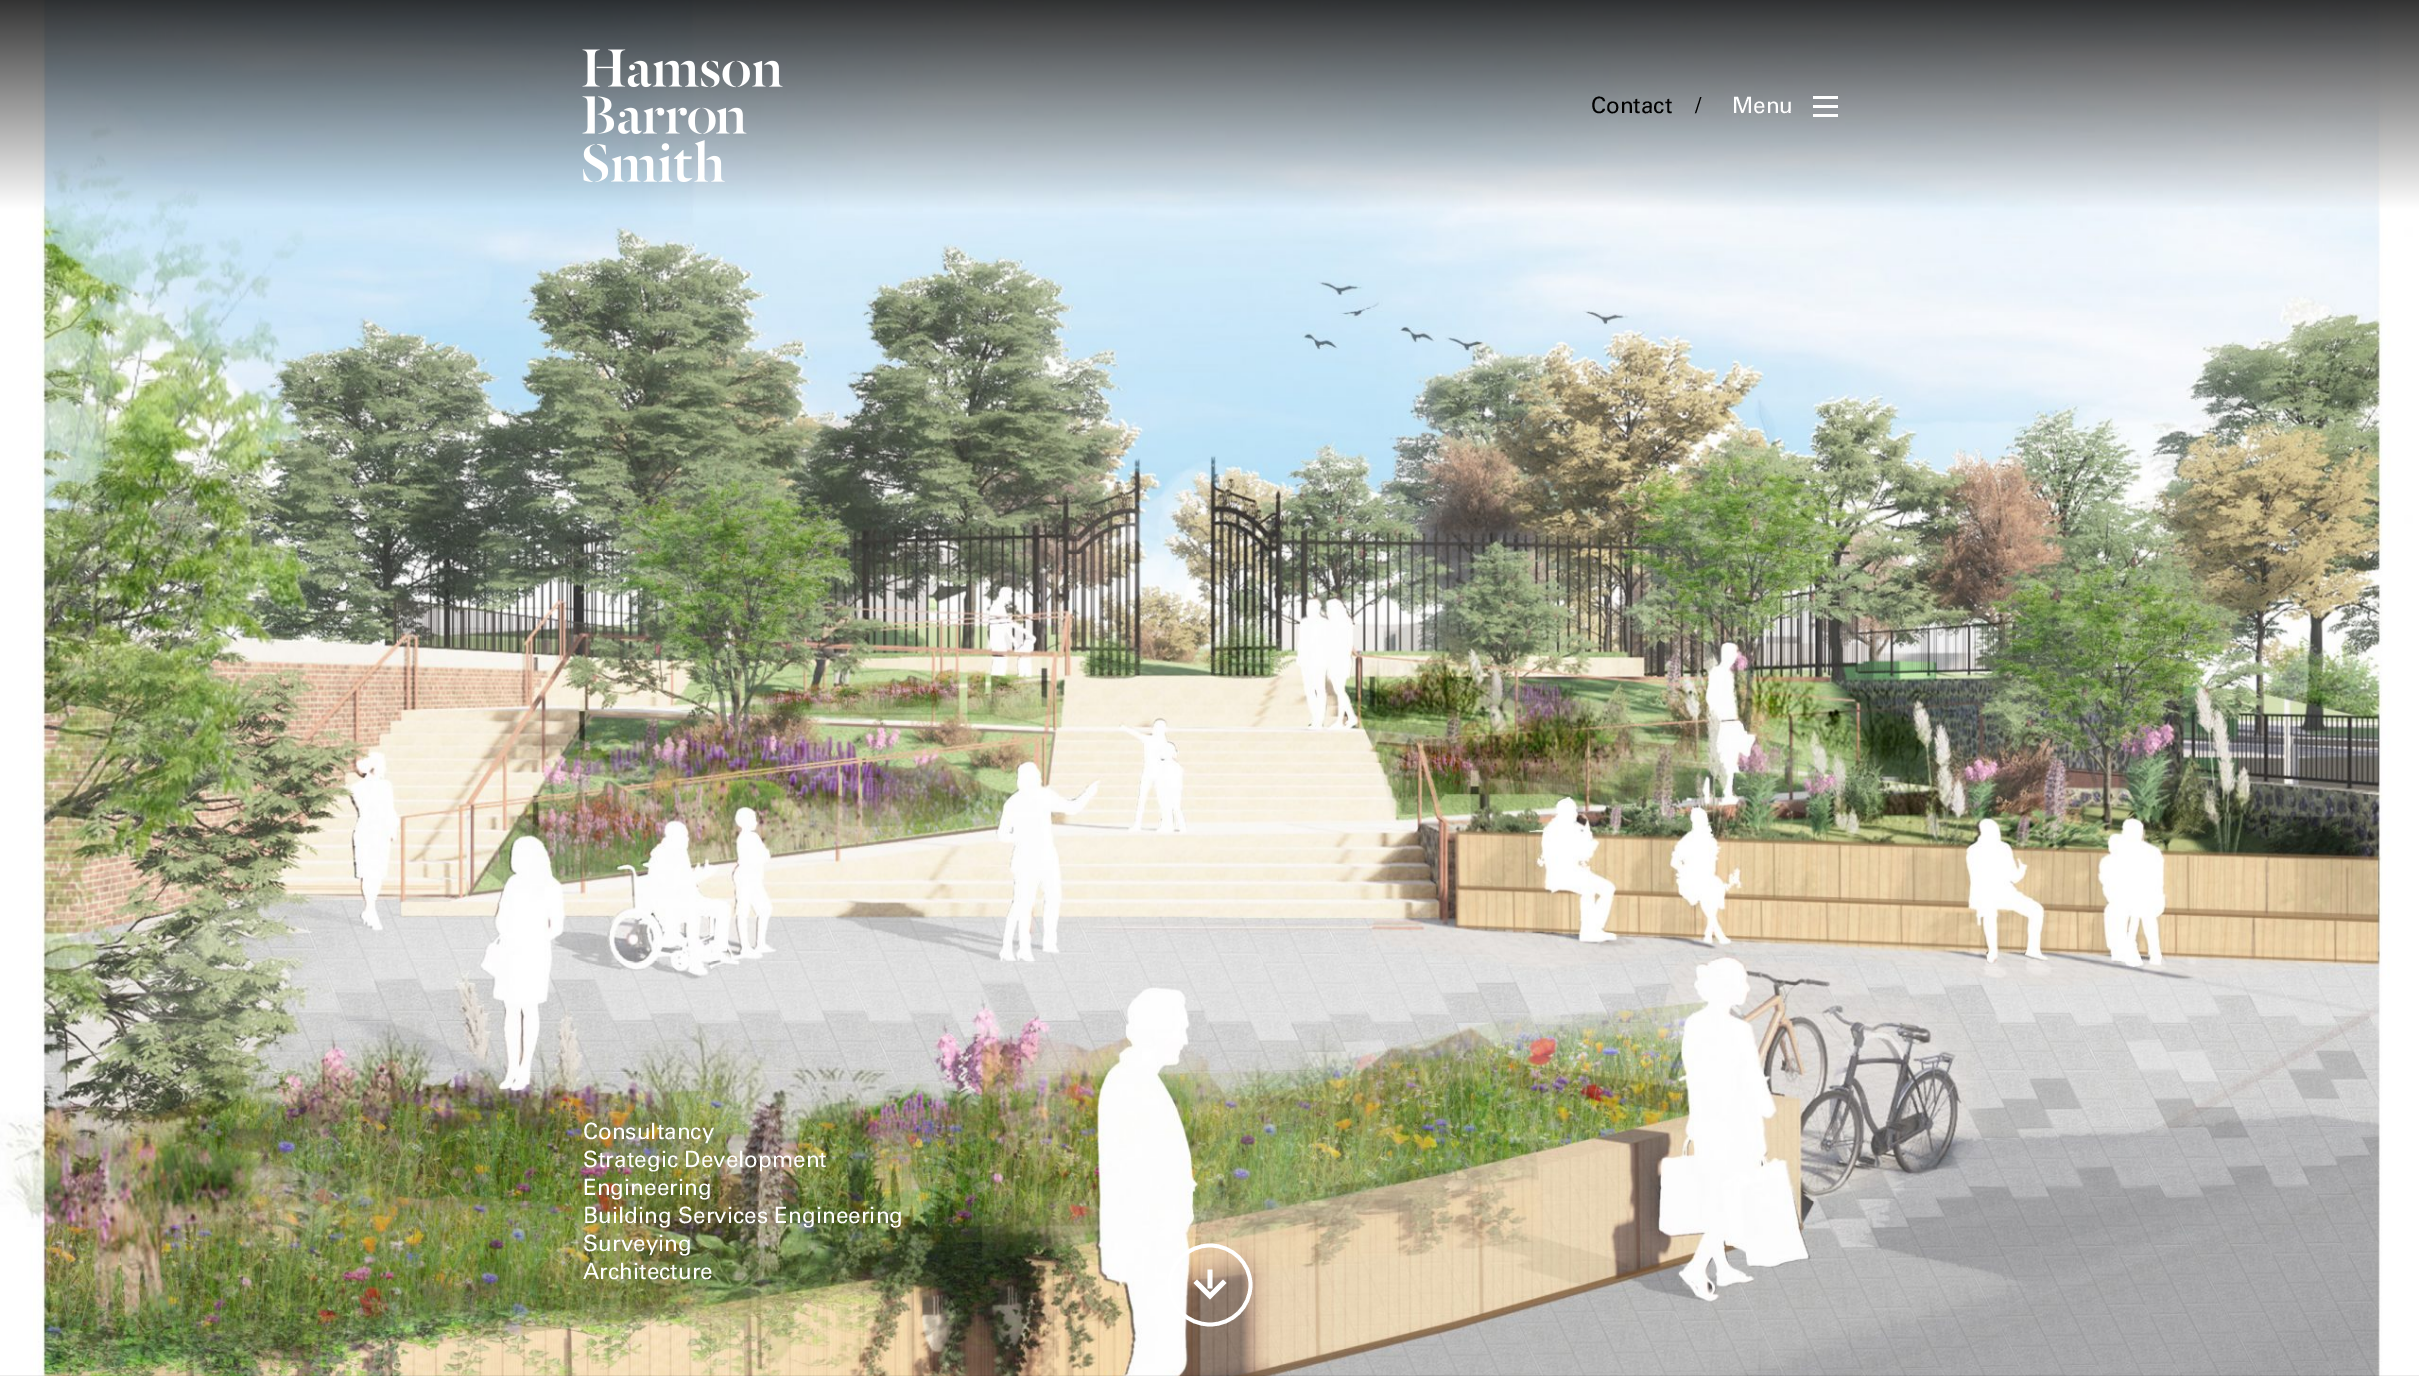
%!PS-Adobe-3.0
%%BoundingBox: 0 0 2419 1376
%%LanguageLevel: 3
%%Pages: 1
%%EndComments
%%BeginProlog
/setink { 3 { 255 div 3 1 roll } repeat setrgbcolor } def
/usefont { [ exch dup neg 0 0 3 -1 roll 0 0 ] selectfont } def
/drawtext { setink usefont moveto show } def
/fillbox { setink rectfill } def
/drawimage { 5 dict begin { /h /w /y /x /name } { exch def } forall
  gsave x y translate w h scale
  w h 8 [w 0 0 h 0 0] name (r) file false 3 colorimage grestore end } def
%%EndProlog
%%BeginSetup
<< /PageSize [2419 1376] >> setpagedevice
%%EndSetup
%%Page: 1 1
0 1376 translate 1 -1 scale
4 setmiterlimit
0 0 2419 1376 255 255 255 fillbox
(assets/img2.rgb) 0 0 2419 1376 drawimage
(assets/img1.rgb) 582 49 201 134 drawimage
(Contact) 1591 113 /Univers-Regular 22.5 0 0 0 drawtext
(/) 1695 113 /Univers-Regular 22.5 0 0 0 drawtext
(Menu) 1732 113 /Univers-Regular 22.5 255 255 255 drawtext
1813 96 25 3 255 255 255 fillbox
1813 105 25 3 255 255 255 fillbox
1813 114 25 3 255 255 255 fillbox
(Consultancy) 583 1139 /Univers-Regular 22.5 255 255 255 drawtext
(Strategic Development) 583 1167 /Univers-Regular 22.5 255 255 255 drawtext
(Engineering) 583 1195 /Univers-Regular 22.5 255 255 255 drawtext
(Building Services Engineering) 583 1223 /Univers-Regular 22.5 255 255 255 drawtext
(Surveying) 583 1251 /Univers-Regular 22.5 255 255 255 drawtext
(Architecture) 583 1279 /Univers-Regular 22.5 255 255 255 drawtext
3.8 setlinewidth
1210 1245.5 moveto 1232.5 1245.5 1250.5 1263.5 1250.5 1285 curveto 1250.5 1306.5 1232.5 1324.5 1210 1324.5 curveto 1187.5 1324.5 1169.5 1306.5 1169.5 1285 curveto 1169.5 1263.5 1187.5 1245.5 1210 1245.5 curveto closepath stroke
1210 1299.5 moveto 1193.5 1283 lineto 1197 1279.5 lineto 1210 1292.5 lineto 1223 1279.5 lineto 1226.5 1283 lineto closepath 1207.5 1269.5 moveto 1212.5 1269.5 lineto 1212.5 1288.5 lineto 1207.5 1288.5 lineto closepath fill
showpage
%%EOF
